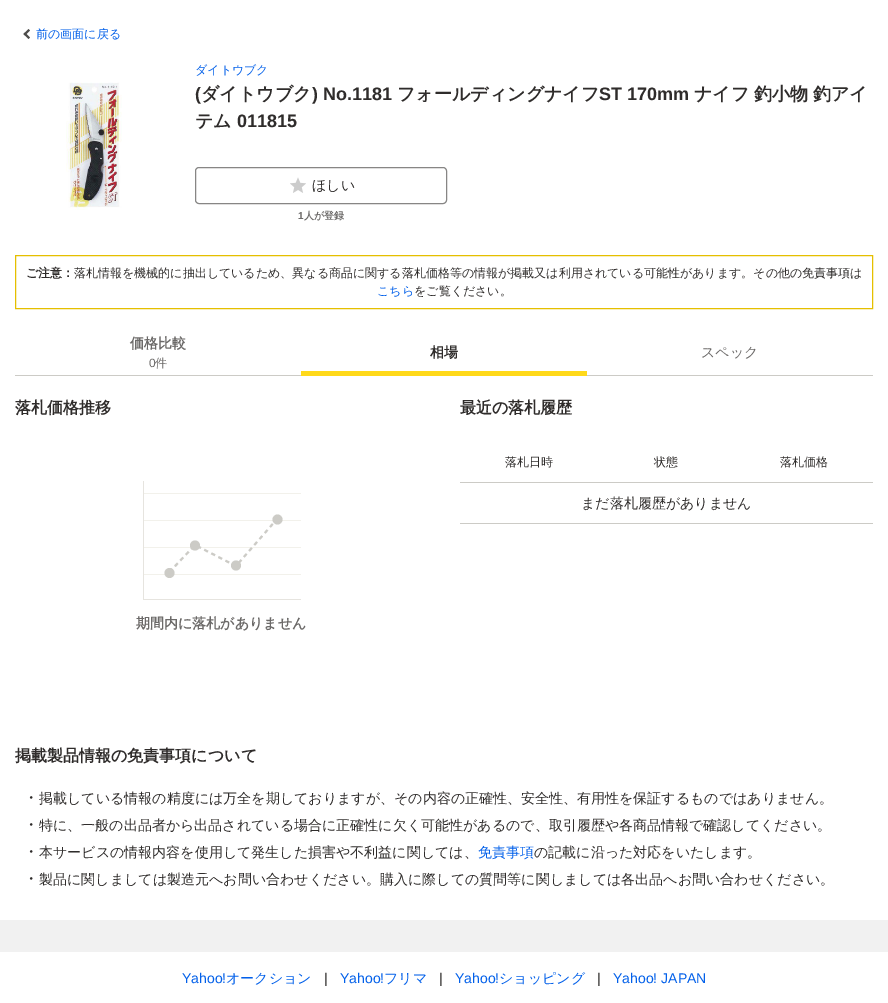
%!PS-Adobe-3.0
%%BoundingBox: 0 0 888 1003
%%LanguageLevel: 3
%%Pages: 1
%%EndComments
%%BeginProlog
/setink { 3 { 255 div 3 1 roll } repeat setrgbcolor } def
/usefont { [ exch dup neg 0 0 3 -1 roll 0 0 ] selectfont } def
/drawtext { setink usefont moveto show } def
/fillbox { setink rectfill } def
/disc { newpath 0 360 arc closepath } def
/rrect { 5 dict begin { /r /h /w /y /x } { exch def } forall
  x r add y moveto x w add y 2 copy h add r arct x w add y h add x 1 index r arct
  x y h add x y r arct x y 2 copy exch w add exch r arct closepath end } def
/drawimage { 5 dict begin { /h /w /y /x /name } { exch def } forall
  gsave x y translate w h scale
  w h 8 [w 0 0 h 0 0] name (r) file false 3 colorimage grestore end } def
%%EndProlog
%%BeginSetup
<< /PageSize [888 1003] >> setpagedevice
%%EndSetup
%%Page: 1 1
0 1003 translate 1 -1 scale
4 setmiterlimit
0 0 888 1003 255 255 255 fillbox
77 76 74 setink
28.5 39 moveto 23.5 34 lineto 25 32.5 lineto 30 37.5 lineto closepath fill
25 35.5 moveto 23.5 34 lineto 28.5 29 lineto 30 30.5 lineto closepath fill
(前の画面に戻る) 36 38 /WenQuanYiZenHei-Medium 12 2 96 234 drawtext
(assets/img1.rgb) 66 82 56 128 drawimage
(ダイトウブク) 195 74 /WenQuanYiZenHei-Medium 12 2 96 234 drawtext
(\() 195 100 /LiberationSans-Bold 18 47 44 43 drawtext
(ダイトウブク) 201 100 /WenQuanYiZenHei-Bold 18 47 44 43 drawtext
(\) No.1181) 312 100 /LiberationSans-Bold 18 47 44 43 drawtext
(フォールディングナイフ) 397 100 /WenQuanYiZenHei-Bold 18 47 44 43 drawtext
(ST 170mm) 599 100 /LiberationSans-Bold 18 47 44 43 drawtext
(ナイフ) 694 100 /WenQuanYiZenHei-Bold 18 47 44 43 drawtext
(釣小物) 754 100 /WenQuanYiZenHei-Bold 18 47 44 43 drawtext
(釣アイ) 813 100 /WenQuanYiZenHei-Bold 18 47 44 43 drawtext
(テム) 195 127 /WenQuanYiZenHei-Bold 18 47 44 43 drawtext
(011815) 237 127 /LiberationSans-Bold 18 47 44 43 drawtext
135 134 133 setink
195.5 167.5 251 36 3.5 rrect stroke
(assets/img2.rgb) 290 177 16 16 drawimage
(ほしい) 312 190 /WenQuanYiZenHei-Medium 14 47 44 43 drawtext
(1) 298 219 /LiberationSans-Bold 10 108 106 105 drawtext
(人が登録) 304 219 /WenQuanYiZenHei-Bold 10 108 106 105 drawtext
229 191 0 setink
15.5 255.5 857 53 rectstroke
(ご注意：) 26 277 /WenQuanYiZenHei-Bold 12 47 44 43 drawtext
(落札情報を機械的に抽出しているため、異なる商品に関する落札価格等の情報が掲載又は利用されている可能性があります。その他の免責事項は) 74 277 /WenQuanYiZenHei-Medium 12 47 44 43 drawtext
(こちら) 377 295 /WenQuanYiZenHei-Medium 12 2 96 234 drawtext
(をご覧ください。) 414 295 /WenQuanYiZenHei-Medium 12 47 44 43 drawtext
15 375 858 1 204 203 198 fillbox
(価格比較) 130 348 /WenQuanYiZenHei-Bold 14 108 106 105 drawtext
(0) 149 367 /LiberationSans-Regular 12 108 106 105 drawtext
(件) 155 367 /WenQuanYiZenHei-Medium 12 108 106 105 drawtext
(相場) 430 357 /WenQuanYiZenHei-Bold 14 47 44 43 drawtext
301 371 286 5 255 217 26 fillbox
(スペック) 701 357 /WenQuanYiZenHei-Medium 14 108 106 105 drawtext
(落札価格推移) 15 413 /WenQuanYiZenHei-Bold 16 47 44 43 drawtext
143 493 158 1 242 241 235 fillbox
143 520 158 1 242 241 235 fillbox
143 547 158 1 242 241 235 fillbox
143 574 158 1 242 241 235 fillbox
143 599 158 1 230 228 223 fillbox
143 481 1 119 230 228 223 fillbox
204 203 198 setink
2 setlinewidth
[3.97 3.97] 0 setdash
169.5 572 moveto 195 545 lineto 236 566 lineto 277.5 518.5 lineto stroke
277.5 519.5 5 disc fill
195 545.5 5 disc fill
236 565.5 5 disc fill
169.5 573 5 disc fill
(期間内に落札がありません) 136 628 /WenQuanYiZenHei-Bold 14 108 106 105 drawtext
(最近の落札履歴) 460 413 /WenQuanYiZenHei-Bold 16 47 44 43 drawtext
460 523 413 1 204 203 198 fillbox
460 482 413 1 204 203 198 fillbox
(落札日時) 505 466 /WenQuanYiZenHei-Medium 12 47 44 43 drawtext
(状態) 654 466 /WenQuanYiZenHei-Medium 12 47 44 43 drawtext
(落札価格) 780 466 /WenQuanYiZenHei-Medium 12 47 44 43 drawtext
(まだ落札履歴がありません) 581 508 /WenQuanYiZenHei-Medium 14 47 44 43 drawtext
(掲載製品情報の免責事項について) 15 761 /WenQuanYiZenHei-Bold 16 47 44 43 drawtext
(・) 23 803 /WenQuanYiZenHei-Medium 16 47 44 43 drawtext
(掲載している情報の精度には万全を期しておりますが、その内容の正確性、安全性、有用性を保証するものではありません。) 39 803 /WenQuanYiZenHei-Medium 14 47 44 43 drawtext
(・) 23 830 /WenQuanYiZenHei-Medium 16 47 44 43 drawtext
(特に、一般の出品者から出品されている場合に正確性に欠く可能性があるので、取引履歴や各商品情報で確認してください。) 39 830 /WenQuanYiZenHei-Medium 14 47 44 43 drawtext
(・) 23 857 /WenQuanYiZenHei-Medium 16 47 44 43 drawtext
(本サービスの情報内容を使用して発生した損害や不利益に関しては、) 39 857 /WenQuanYiZenHei-Medium 14 47 44 43 drawtext
(免責事項) 478 857 /WenQuanYiZenHei-Medium 14 2 96 234 drawtext
(の記載に沿った対応をいたします。) 534 857 /WenQuanYiZenHei-Medium 14 47 44 43 drawtext
(・) 23 884 /WenQuanYiZenHei-Medium 16 47 44 43 drawtext
(製品に関しましては製造元へお問い合わせください。購入に際しての質問等に関しましては各出品へお問い合わせください。) 39 884 /WenQuanYiZenHei-Medium 14 47 44 43 drawtext
0 920 888 32 241 241 241 fillbox
(Yahoo!) 182 983 /LiberationSans-Regular 14 2 96 234 drawtext
(オークション) 226 983 /WenQuanYiZenHei-Medium 14 2 96 234 drawtext
(|) 324 983 /LiberationSans-Regular 14 47 44 43 drawtext
(Yahoo!) 340 983 /LiberationSans-Regular 14 2 96 234 drawtext
(フリマ) 384 983 /WenQuanYiZenHei-Medium 14 2 96 234 drawtext
(|) 439 983 /LiberationSans-Regular 14 47 44 43 drawtext
(Yahoo!) 455 983 /LiberationSans-Regular 14 2 96 234 drawtext
(ショッピング) 499 983 /WenQuanYiZenHei-Medium 14 2 96 234 drawtext
(|) 597 983 /LiberationSans-Regular 14 47 44 43 drawtext
(Yahoo! JAPAN) 613 983 /LiberationSans-Regular 14 2 96 234 drawtext
showpage
%%EOF
